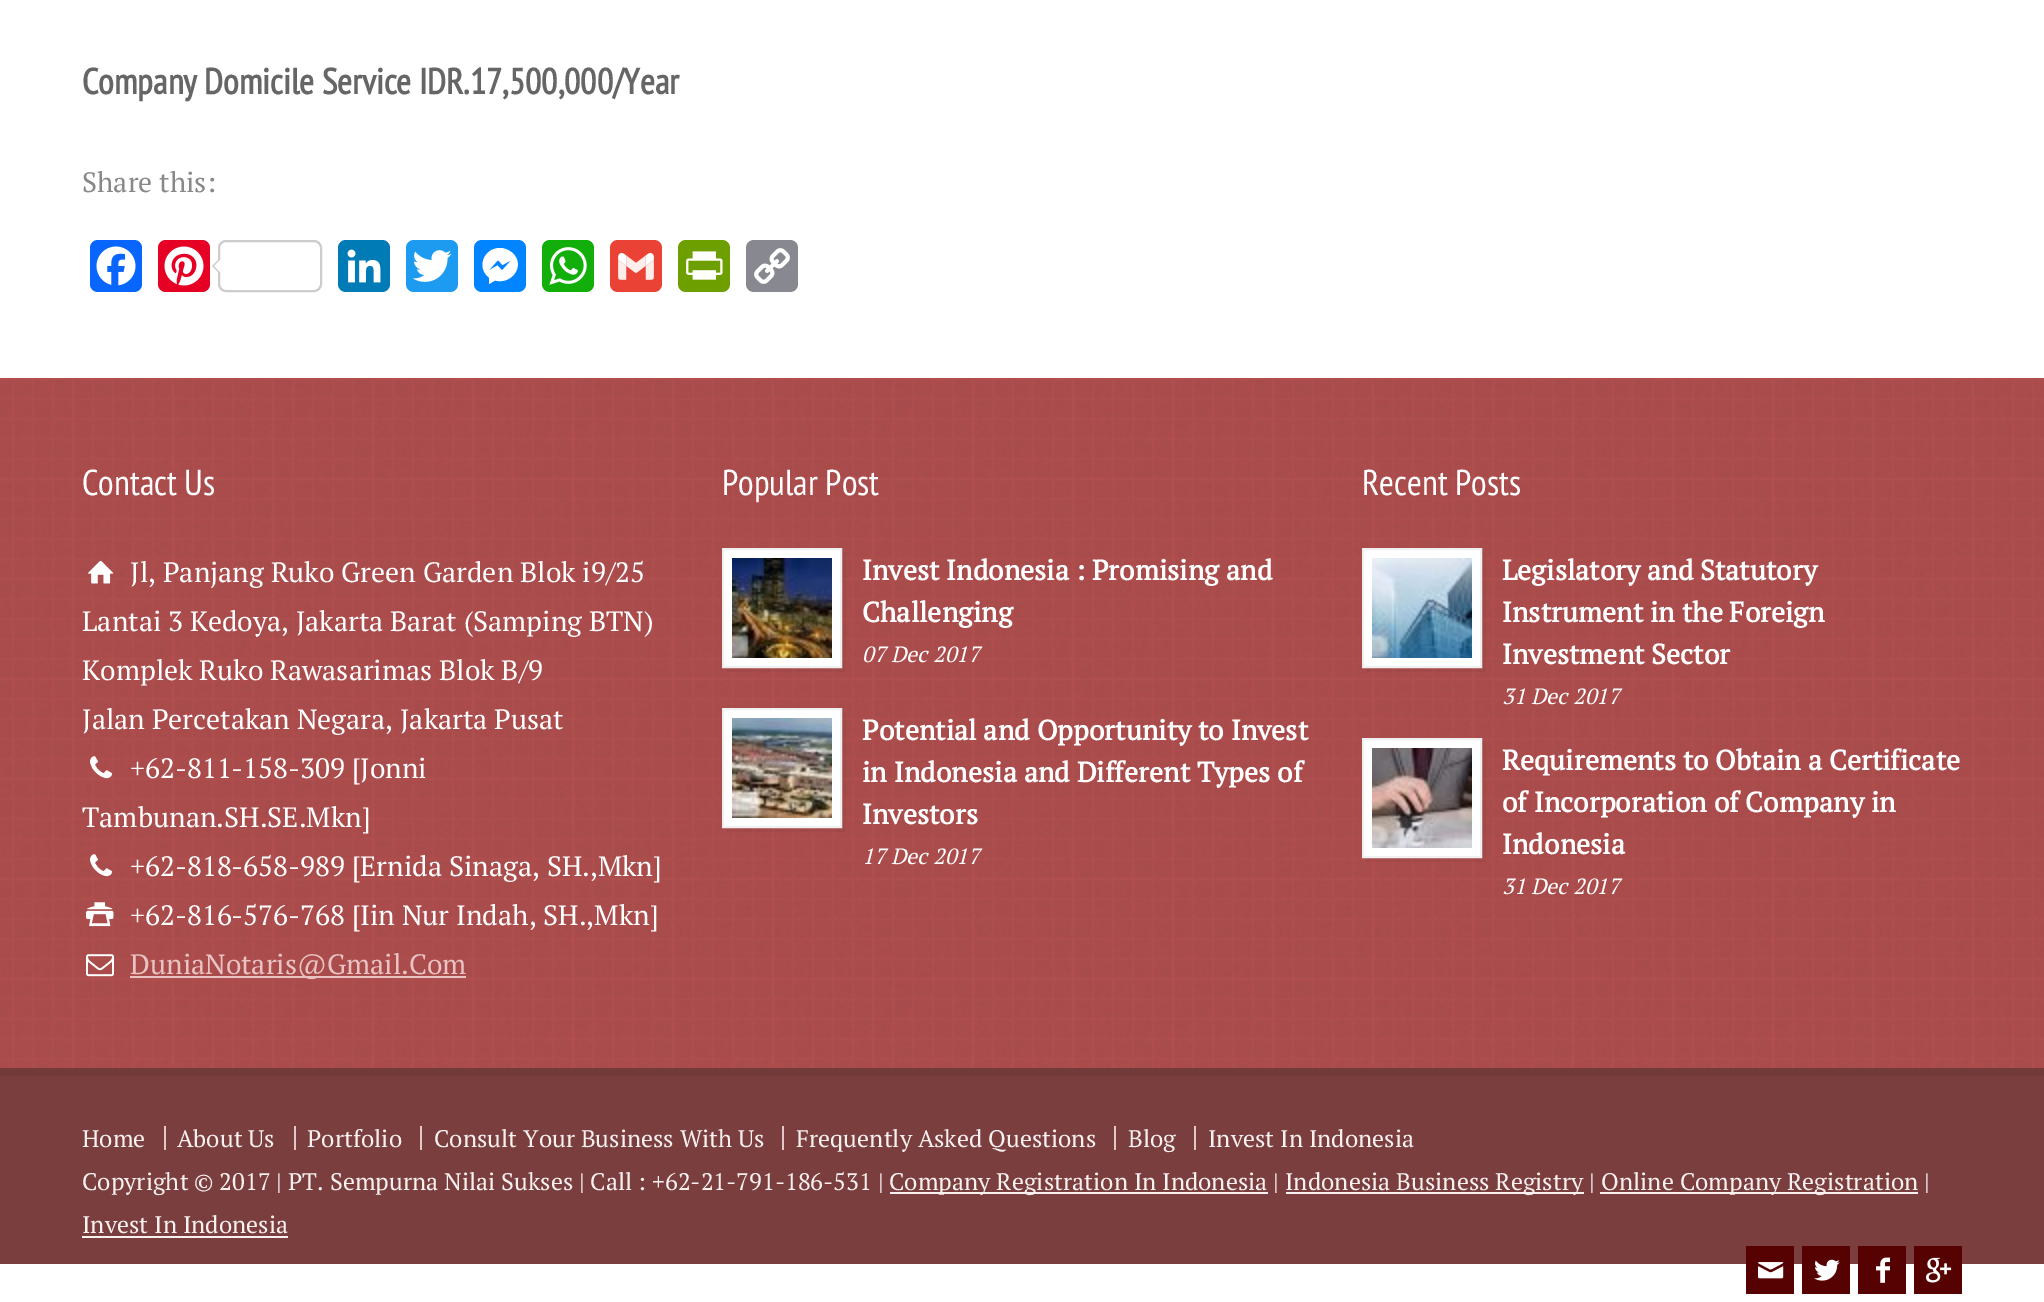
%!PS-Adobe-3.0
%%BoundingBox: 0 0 2044 1302
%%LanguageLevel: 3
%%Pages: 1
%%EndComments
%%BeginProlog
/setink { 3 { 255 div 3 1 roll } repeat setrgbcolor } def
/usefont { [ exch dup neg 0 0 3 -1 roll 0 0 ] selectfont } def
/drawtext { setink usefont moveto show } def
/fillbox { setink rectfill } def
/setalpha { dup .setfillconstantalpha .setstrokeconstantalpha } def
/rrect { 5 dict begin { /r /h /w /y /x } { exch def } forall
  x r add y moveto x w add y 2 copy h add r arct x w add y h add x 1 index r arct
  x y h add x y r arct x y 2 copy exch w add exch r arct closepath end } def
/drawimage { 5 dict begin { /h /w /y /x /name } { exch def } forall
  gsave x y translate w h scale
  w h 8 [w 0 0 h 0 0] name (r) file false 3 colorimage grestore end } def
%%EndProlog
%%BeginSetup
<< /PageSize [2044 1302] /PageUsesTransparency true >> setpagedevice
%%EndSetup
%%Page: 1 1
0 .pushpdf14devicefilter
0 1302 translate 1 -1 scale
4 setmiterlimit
0 0 2044 1302 255 255 255 fillbox
(Company Domicile Service IDR.17,500,000/Year) 82 94 /PTSansNarrow-Bold 36 102 102 102 drawtext
(Share this:) 82 192 /PTSerif-Regular 28 136 136 136 drawtext
8 102 255 setink
90 240 52 52 8 rrect fill
(assets/img1.rgb) 96 246 40 40 drawimage
230 0 35 setink
158 240 52 52 8 rrect fill
(assets/img2.rgb) 164 246 40 40 drawimage
204 204 204 setink
2 setlinewidth
219 241 102 50 7 rrect stroke
220 258 moveto 220 274 lineto 212 266 lineto closepath fill
255 255 255 setink
222 258 moveto 222 274 lineto 214 266 lineto closepath fill
0 123 181 setink
338 240 52 52 8 rrect fill
(assets/img3.rgb) 347 249 34 34 drawimage
29 155 240 setink
406 240 52 52 8 rrect fill
(assets/img4.rgb) 412 250 40 32 drawimage
0 132 255 setink
474 240 52 52 8 rrect fill
255 255 255 setink
500 248 moveto 484 248 476 267.5 489 277.5 curveto 489 284 lineto 495 280.5 lineto 511.5 285 526 265.5 512.5 253 curveto 509 250 504.5 248 500 248 curveto 502 270.5 moveto 497.5 265.5 lineto 488.5 270.5 lineto 498 260 lineto 502.5 265 lineto 511.5 260 lineto closepath fill
18 175 10 setink
542 240 52 52 8 rrect fill
(assets/img5.rgb) 549 247 38 38 drawimage
234 67 53 setink
610 240 52 52 8 rrect fill
(assets/img6.rgb) 618 253 36 27 drawimage
109 159 0 setink
678 240 52 52 8 rrect fill
(assets/img7.rgb) 686 251 37 29 drawimage
136 137 144 setink
746 240 52 52 8 rrect fill
(assets/img8.rgb) 754 248 36 36 drawimage
(assets/img9.rgb) 0 378 2044 690 drawimage
(Contact Us) 82 495 /PTSansNarrow-Regular 36 255 255 255 drawtext
(assets/img10.rgb) 88 560 26 24 drawimage
(Jl, Panjang Ruko Green Garden Blok i9/25) 130 582 /PTSerif-Regular 28 255 255 255 drawtext
(Lantai 3 Kedoya, Jakarta Barat \(Samping BTN\)) 82 631 /PTSerif-Regular 28 255 255 255 drawtext
(Komplek Ruko Rawasarimas Blok B/9) 82 680 /PTSerif-Regular 28 255 255 255 drawtext
(Jalan Percetakan Negara, Jakarta Pusat) 82 729 /PTSerif-Regular 28 255 255 255 drawtext
(assets/img11.rgb) 90 756 22 23 drawimage
(+62-811-158-309 [Jonni) 130 778 /PTSerif-Regular 28 255 255 255 drawtext
(Tambunan.SH.SE.Mkn]) 82 827 /PTSerif-Regular 28 255 255 255 drawtext
(assets/img12.rgb) 90 854 22 23 drawimage
(+62-818-658-989 [Ernida Sinaga, SH.,Mkn]) 130 876 /PTSerif-Regular 28 255 255 255 drawtext
(assets/img13.rgb) 86 902 28 25 drawimage
(+62-816-576-768 [Iin Nur Indah, SH.,Mkn]) 130 925 /PTSerif-Regular 28 255 255 255 drawtext
(assets/img14.rgb) 86 954 28 23 drawimage
130 976 336 2 233 194 194 fillbox
(DuniaNotaris@Gmail.Com) 130 974 /PTSerif-Regular 28 233 194 194 drawtext
(Popular Post) 722 495 /PTSansNarrow-Regular 36 255 255 255 drawtext
0.04 setalpha
0 0 0 setink
726 668 moveto 726 672 lineto 846 672 lineto 846 552 lineto 842 552 lineto 842 668 lineto closepath fill
1 setalpha
255 255 255 setink
723 549 moveto 841 549 lineto 841 667 lineto 723 667 lineto closepath gsave fill grestore
240 240 240 setink
stroke
(assets/img15.rgb) 732 558 100 100 drawimage
(Invest Indonesia : Promising and) 862 580 /PTSerif-Bold 28 255 255 255 drawtext
(Challenging) 862 622 /PTSerif-Bold 28 255 255 255 drawtext
(07 Dec 2017) 862 662 /PTSerif-Italic 22 255 255 255 drawtext
0.04 setalpha
0 0 0 setink
726 828 moveto 726 832 lineto 846 832 lineto 846 712 lineto 842 712 lineto 842 828 lineto closepath fill
1 setalpha
255 255 255 setink
723 709 moveto 841 709 lineto 841 827 lineto 723 827 lineto closepath gsave fill grestore
240 240 240 setink
stroke
(assets/img16.rgb) 732 718 100 100 drawimage
(Potential and Opportunity to Invest) 862 740 /PTSerif-Bold 28 255 255 255 drawtext
(in Indonesia and Different Types of) 862 782 /PTSerif-Bold 28 255 255 255 drawtext
(Investors) 862 824 /PTSerif-Bold 28 255 255 255 drawtext
(17 Dec 2017) 862 864 /PTSerif-Italic 22 255 255 255 drawtext
(Recent Posts) 1362 495 /PTSansNarrow-Regular 36 255 255 255 drawtext
0.04 setalpha
0 0 0 setink
1366 668 moveto 1366 672 lineto 1486 672 lineto 1486 552 lineto 1482 552 lineto 1482 668 lineto closepath fill
1 setalpha
255 255 255 setink
1363 549 moveto 1481 549 lineto 1481 667 lineto 1363 667 lineto closepath gsave fill grestore
240 240 240 setink
stroke
(assets/img17.rgb) 1372 558 100 100 drawimage
(Legislatory and Statutory) 1502 580 /PTSerif-Bold 28 255 255 255 drawtext
(Instrument in the Foreign) 1502 622 /PTSerif-Bold 28 255 255 255 drawtext
(Investment Sector) 1502 664 /PTSerif-Bold 28 255 255 255 drawtext
(31 Dec 2017) 1502 704 /PTSerif-Italic 22 255 255 255 drawtext
0.04 setalpha
0 0 0 setink
1366 858 moveto 1366 862 lineto 1486 862 lineto 1486 742 lineto 1482 742 lineto 1482 858 lineto closepath fill
1 setalpha
255 255 255 setink
1363 739 moveto 1481 739 lineto 1481 857 lineto 1363 857 lineto closepath gsave fill grestore
240 240 240 setink
stroke
(assets/img18.rgb) 1372 748 100 100 drawimage
(Requirements to Obtain a Certificate) 1502 770 /PTSerif-Bold 28 255 255 255 drawtext
(of Incorporation of Company in) 1502 812 /PTSerif-Bold 28 255 255 255 drawtext
(Indonesia) 1502 854 /PTSerif-Bold 28 255 255 255 drawtext
(31 Dec 2017) 1502 894 /PTSerif-Italic 22 255 255 255 drawtext
0 1076 2044 188 122 62 62 fillbox
0 1068 2044 8 115 58 58 fillbox
(Home) 82 1147 /PTSerif-Regular 24 249 240 240 drawtext
164 1126 2 24 227 198 198 fillbox
(About Us) 177 1147 /PTSerif-Regular 24 249 240 240 drawtext
294 1126 2 24 227 198 198 fillbox
(Portfolio) 307 1147 /PTSerif-Regular 24 249 240 240 drawtext
420 1126 2 24 227 198 198 fillbox
(Consult Your Business With Us) 434 1147 /PTSerif-Regular 24 249 240 240 drawtext
782 1126 2 24 227 198 198 fillbox
(Frequently Asked Questions) 796 1147 /PTSerif-Regular 24 249 240 240 drawtext
1114 1126 2 24 227 198 198 fillbox
(Blog) 1128 1147 /PTSerif-Regular 24 249 240 240 drawtext
1194 1126 2 24 227 198 198 fillbox
(Invest In Indonesia) 1208 1147 /PTSerif-Regular 24 249 240 240 drawtext
(Copyright © 2017 | PT. Sempurna Nilai Sukses | Call : +62-21-791-186-531 |) 82 1190 /PTSerif-Regular 24 249 240 240 drawtext
890 1192 378 2 249 240 240 fillbox
(Company Registration In Indonesia |) 889 1190 /PTSerif-Regular 24 249 240 240 drawtext
1286 1192 298 2 249 240 240 fillbox
(Indonesia Business Registry |) 1285 1190 /PTSerif-Regular 24 249 240 240 drawtext
1600 1192 318 2 249 240 240 fillbox
(Online Company Registration |) 1601 1190 /PTSerif-Regular 24 249 240 240 drawtext
(Invest In Indonesia) 82 1233 /PTSerif-Regular 24 249 240 240 drawtext
82 1236 206 2 249 240 240 fillbox
1746 1246 48 48 86 2 2 fillbox
(assets/img19.rgb) 1758 1262 26 17 drawimage
1802 1246 48 48 86 2 2 fillbox
(assets/img20.rgb) 1814 1259 26 22 drawimage
1858 1246 48 48 86 2 2 fillbox
(assets/img21.rgb) 1876 1257 14 26 drawimage
1914 1246 48 48 86 2 2 fillbox
(assets/img22.rgb) 1926 1257 26 26 drawimage
.poppdf14devicefilter showpage
%%EOF
